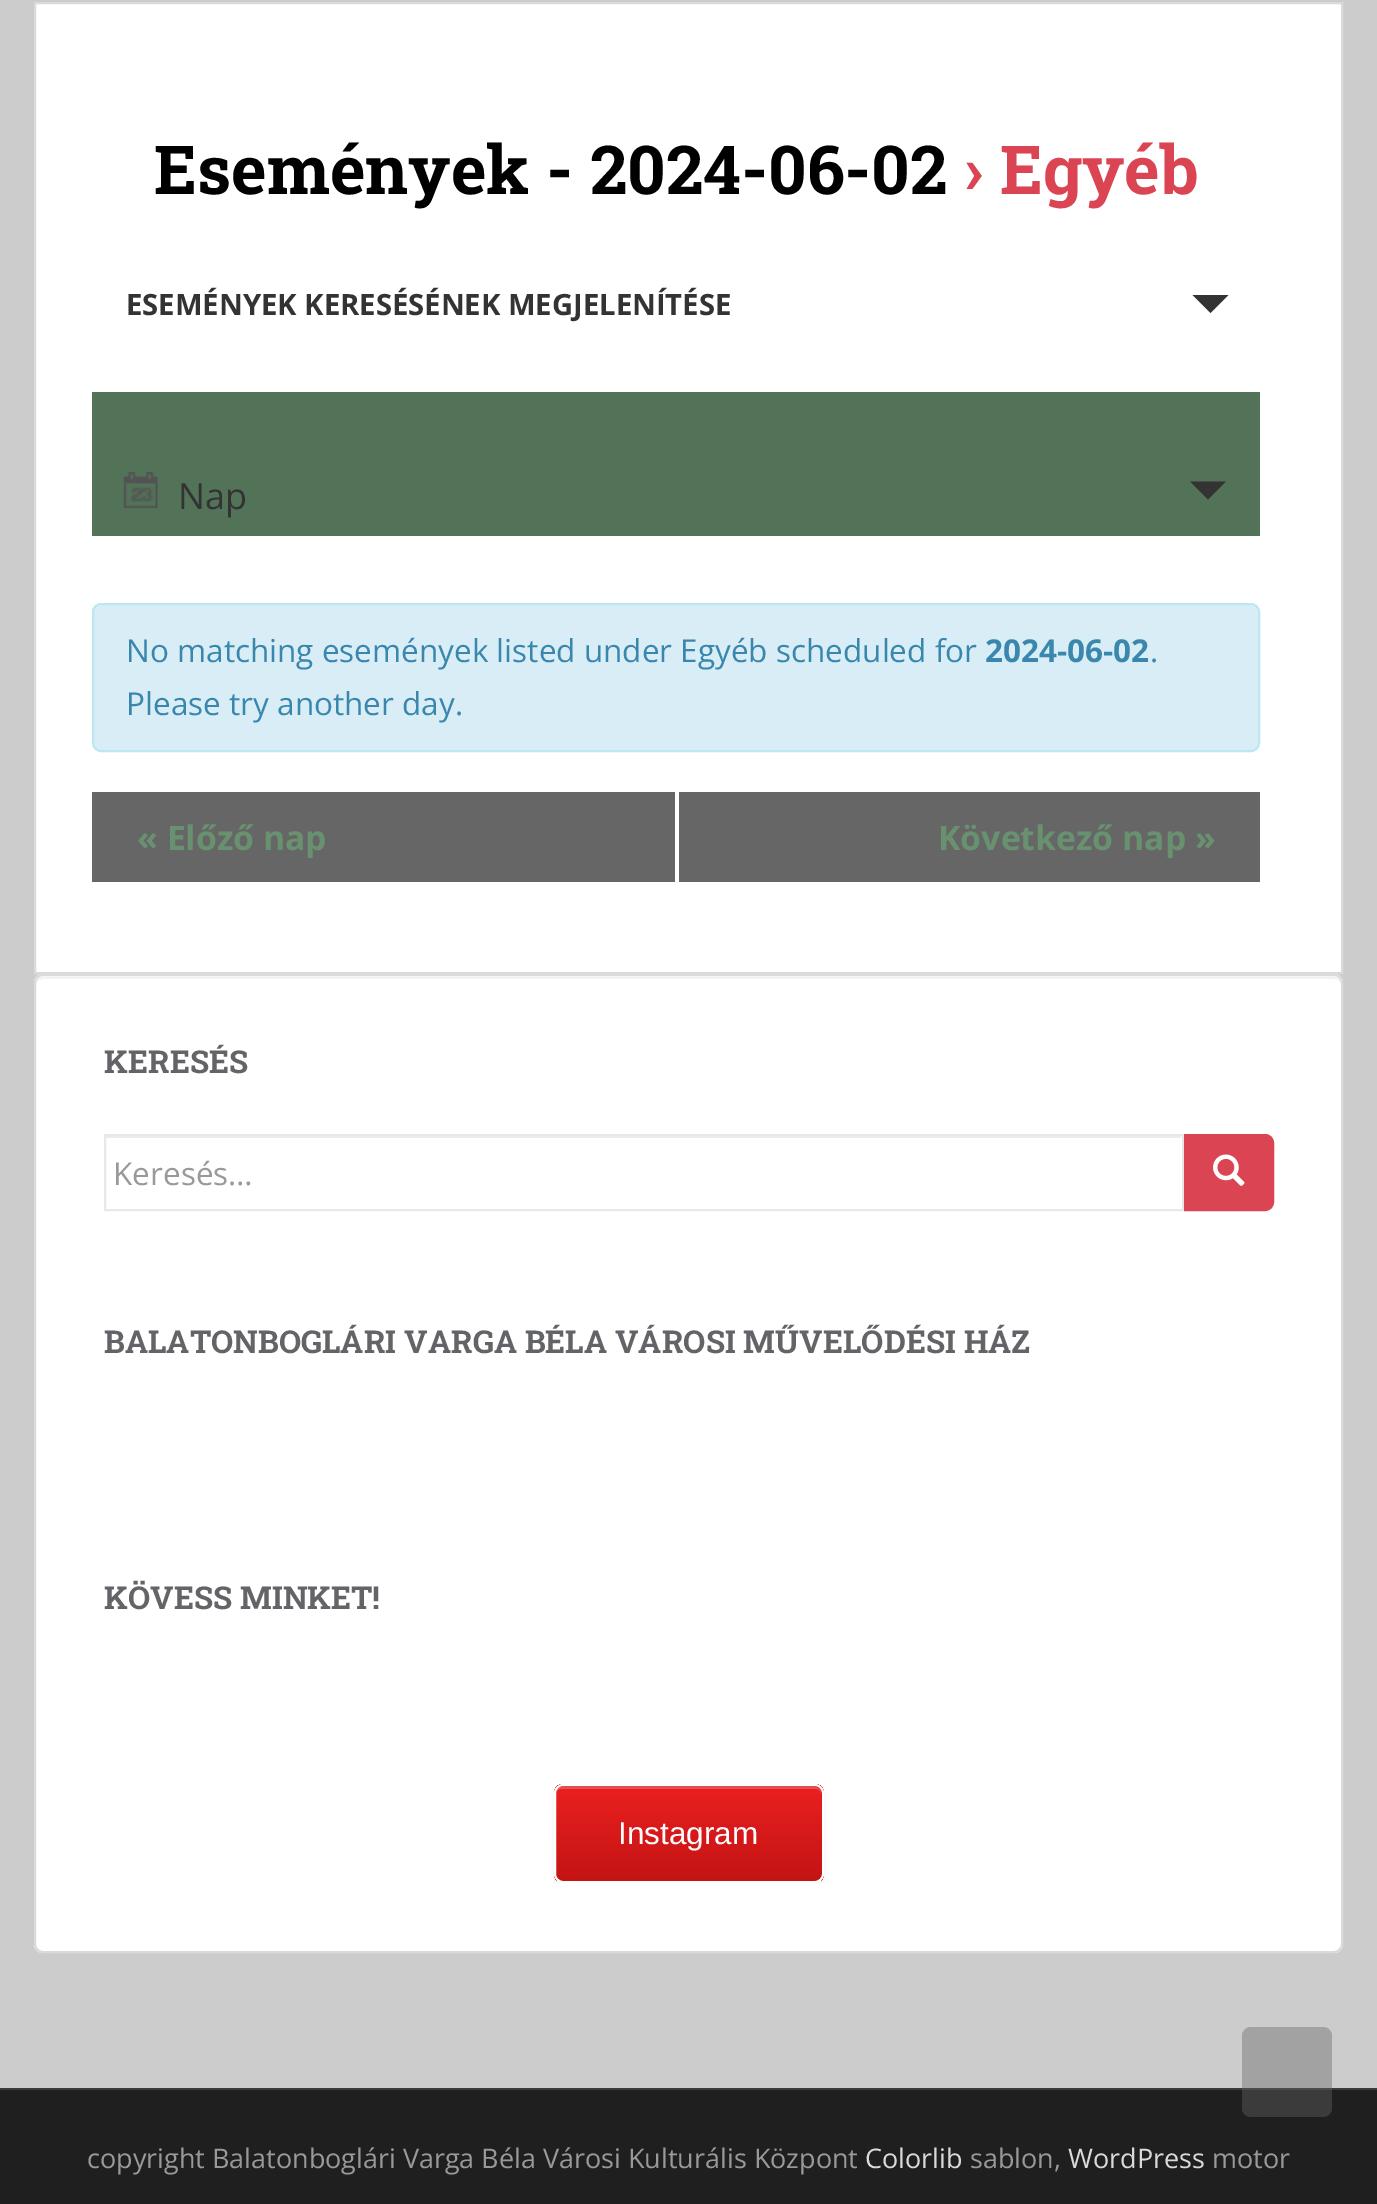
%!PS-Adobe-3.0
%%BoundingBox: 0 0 1377 2204
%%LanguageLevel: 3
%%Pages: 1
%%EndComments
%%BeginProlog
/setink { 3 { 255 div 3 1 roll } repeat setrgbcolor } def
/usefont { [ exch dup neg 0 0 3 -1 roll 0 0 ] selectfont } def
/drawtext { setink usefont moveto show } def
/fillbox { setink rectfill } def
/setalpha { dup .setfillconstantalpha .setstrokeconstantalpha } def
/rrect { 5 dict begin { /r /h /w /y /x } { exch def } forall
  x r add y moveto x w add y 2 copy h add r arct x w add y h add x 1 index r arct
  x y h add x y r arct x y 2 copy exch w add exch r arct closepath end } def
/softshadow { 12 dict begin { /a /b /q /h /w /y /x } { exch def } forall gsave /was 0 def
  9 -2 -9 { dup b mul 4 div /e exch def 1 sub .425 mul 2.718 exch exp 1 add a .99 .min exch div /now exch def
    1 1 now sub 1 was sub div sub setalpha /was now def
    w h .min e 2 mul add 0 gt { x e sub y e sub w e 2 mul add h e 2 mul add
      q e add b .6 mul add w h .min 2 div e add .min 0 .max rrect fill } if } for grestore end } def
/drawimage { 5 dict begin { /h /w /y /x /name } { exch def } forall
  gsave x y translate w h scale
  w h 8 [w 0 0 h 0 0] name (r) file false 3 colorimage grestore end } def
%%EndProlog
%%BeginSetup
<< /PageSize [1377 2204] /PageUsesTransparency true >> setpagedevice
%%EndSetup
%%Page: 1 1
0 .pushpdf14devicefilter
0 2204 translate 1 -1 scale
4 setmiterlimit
0 0 1377 2204 204 204 204 fillbox
255 255 255 setink
35 3 moveto 1342 3 lineto 1342 973 lineto 35 973 lineto closepath gsave fill grestore
218 218 218 setink
2 setlinewidth
stroke
(Események - 2024-06-02) 154 194 /RobotoSlab-Bold 67.5 0 0 0 drawtext
(› Egyéb) 964 194 /RobotoSlab-Bold 67.5 218 68 83 drawtext
(ESEMÉNYEK KERESÉSÉNEK MEGJELENÍTÉSE) 126 315 /OpenSans-Bold 29.25 51 51 51 drawtext
1192.5 295 moveto 1228.5 295 lineto 1210.5 313 lineto closepath fill
92 392 1168 144 83 115 88 fillbox
(assets/img1.rgb) 123 472 35 36 drawimage
(Nap) 178 509 /OpenSans-Regular 36 51 51 51 drawtext
1190 481.5 moveto 1226 481.5 lineto 1208 499.5 lineto closepath fill
217 237 247 setink
93 604 1166 147 8 rrect gsave fill grestore
188 232 241 setink
stroke
(No matching események listed under Egyéb scheduled for) 126 662 /OpenSans-Regular 31.5 58 135 173 drawtext
(2024-06-02) 985 662 /OpenSans-Bold 31.5 58 135 173 drawtext
(.) 1150 662 /OpenSans-Regular 31.5 58 135 173 drawtext
(Please try another day.) 126 715 /OpenSans-Regular 31.5 58 135 173 drawtext
92 792 583 90 102 102 102 fillbox
(« Előző nap) 137 850 /OpenSans-Bold 33.75 104 145 111 drawtext
679 792 581 90 102 102 102 fillbox
(Következő nap ») 938 850 /OpenSans-Bold 33.75 104 145 111 drawtext
255 255 255 setink
34 974 1309 979 9 rrect fill
242 242 242 setink
43 979 moveto 1334 979 lineto 1338 979 1341 982 1341 986 curveto 1341 984 lineto 1341 980 1338 977 1334 977 curveto 43 977 lineto 39 977 36 980 36 984 curveto 36 986 lineto 36 982 39 979 43 979 curveto closepath fill
218 218 218 setink
35 975 1307 977 8 rrect stroke
(KERESÉS) 104 1073 /RobotoSlab-Bold 31.5 99 100 103 drawtext
106 1136 1075 2 236 236 236 fillbox
232 232 232 setink
105 1135 1078 75 rectstroke
(Keresés…) 113 1185 /OpenSans-Regular 31.5 153 153 153 drawtext
218 68 83 setink
1185 1135 moveto 1265 1135 lineto 1269.5 1135 1273 1138.5 1273 1143 curveto 1273 1202 lineto 1273 1206.5 1269.5 1210 1265 1210 curveto 1185 1210 lineto closepath gsave fill grestore
stroke
(assets/img2.rgb) 1213 1154 32 32 drawimage
(BALATONBOGLÁRI VARGA BÉLA VÁROSI MŰVELŐDÉSI HÁZ) 104 1353 /RobotoSlab-Bold 31.5 99 100 103 drawtext
(KÖVESS MINKET!) 104 1609 /RobotoSlab-Bold 31.5 99 100 103 drawtext
gsave
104 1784 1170 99 rectclip
0 0 0 setink
554 1787 270 99 9 2 0.07 softshadow
grestore
gsave
554 1784 270 99 9 rrect clip newpath
gsave 554 1784 moveto 824 1784 lineto 824 1787 lineto 554 1787 lineto closepath clip newpath
<< /ShadingType 2 /ColorSpace /DeviceRGB /Coords [556 1787 556 1692] /Extend [true true] /Function << /FunctionType 2 /Domain [0 1] /C0 [0.769 0.075 0.075] /C1 [0.918 0.125 0.125] /N 1 >> >> shfill grestore
gsave 554 1787 moveto 824 1787 lineto 824 1881 lineto 554 1881 lineto closepath clip newpath
<< /ShadingType 2 /ColorSpace /DeviceRGB /Coords [556 1881 556 1787] /Extend [true true] /Function << /FunctionType 2 /Domain [0 1] /C0 [0.769 0.075 0.075] /C1 [0.918 0.125 0.125] /N 1 >> >> shfill grestore
grestore
238 77 77 setink
561 1789 moveto 816 1789 lineto 819 1789 821 1791 821 1794 curveto 821 1793 lineto 821 1790 818 1787 815 1787 curveto 562 1787 lineto 559 1787 556 1790 556 1793 curveto 556 1794 lineto 556 1791 558 1789 561 1789 curveto closepath fill
255 255 255 setink
555 1785 268 97 8 rrect stroke
(Instagram) 618 1844 /LiberationSans-Regular 31.5 255 255 255 drawtext
0 2090 1377 114 31 31 31 fillbox
0 2088 1377 2 58 58 58 fillbox
0.4 setalpha
100 100 100 setink
1242 2027 90 90 9 rrect fill
1 setalpha
(copyright Balatonboglári Varga Béla Városi Kulturális Központ) 87 2168 /OpenSans-Regular 27 153 153 153 drawtext
(Colorlib) 865 2168 /OpenSans-Regular 27 218 218 218 drawtext
(sablon,) 970 2168 /OpenSans-Regular 27 153 153 153 drawtext
(WordPress) 1068 2168 /OpenSans-Regular 27 218 218 218 drawtext
(motor) 1212 2168 /OpenSans-Regular 27 153 153 153 drawtext
.poppdf14devicefilter showpage
%%EOF
